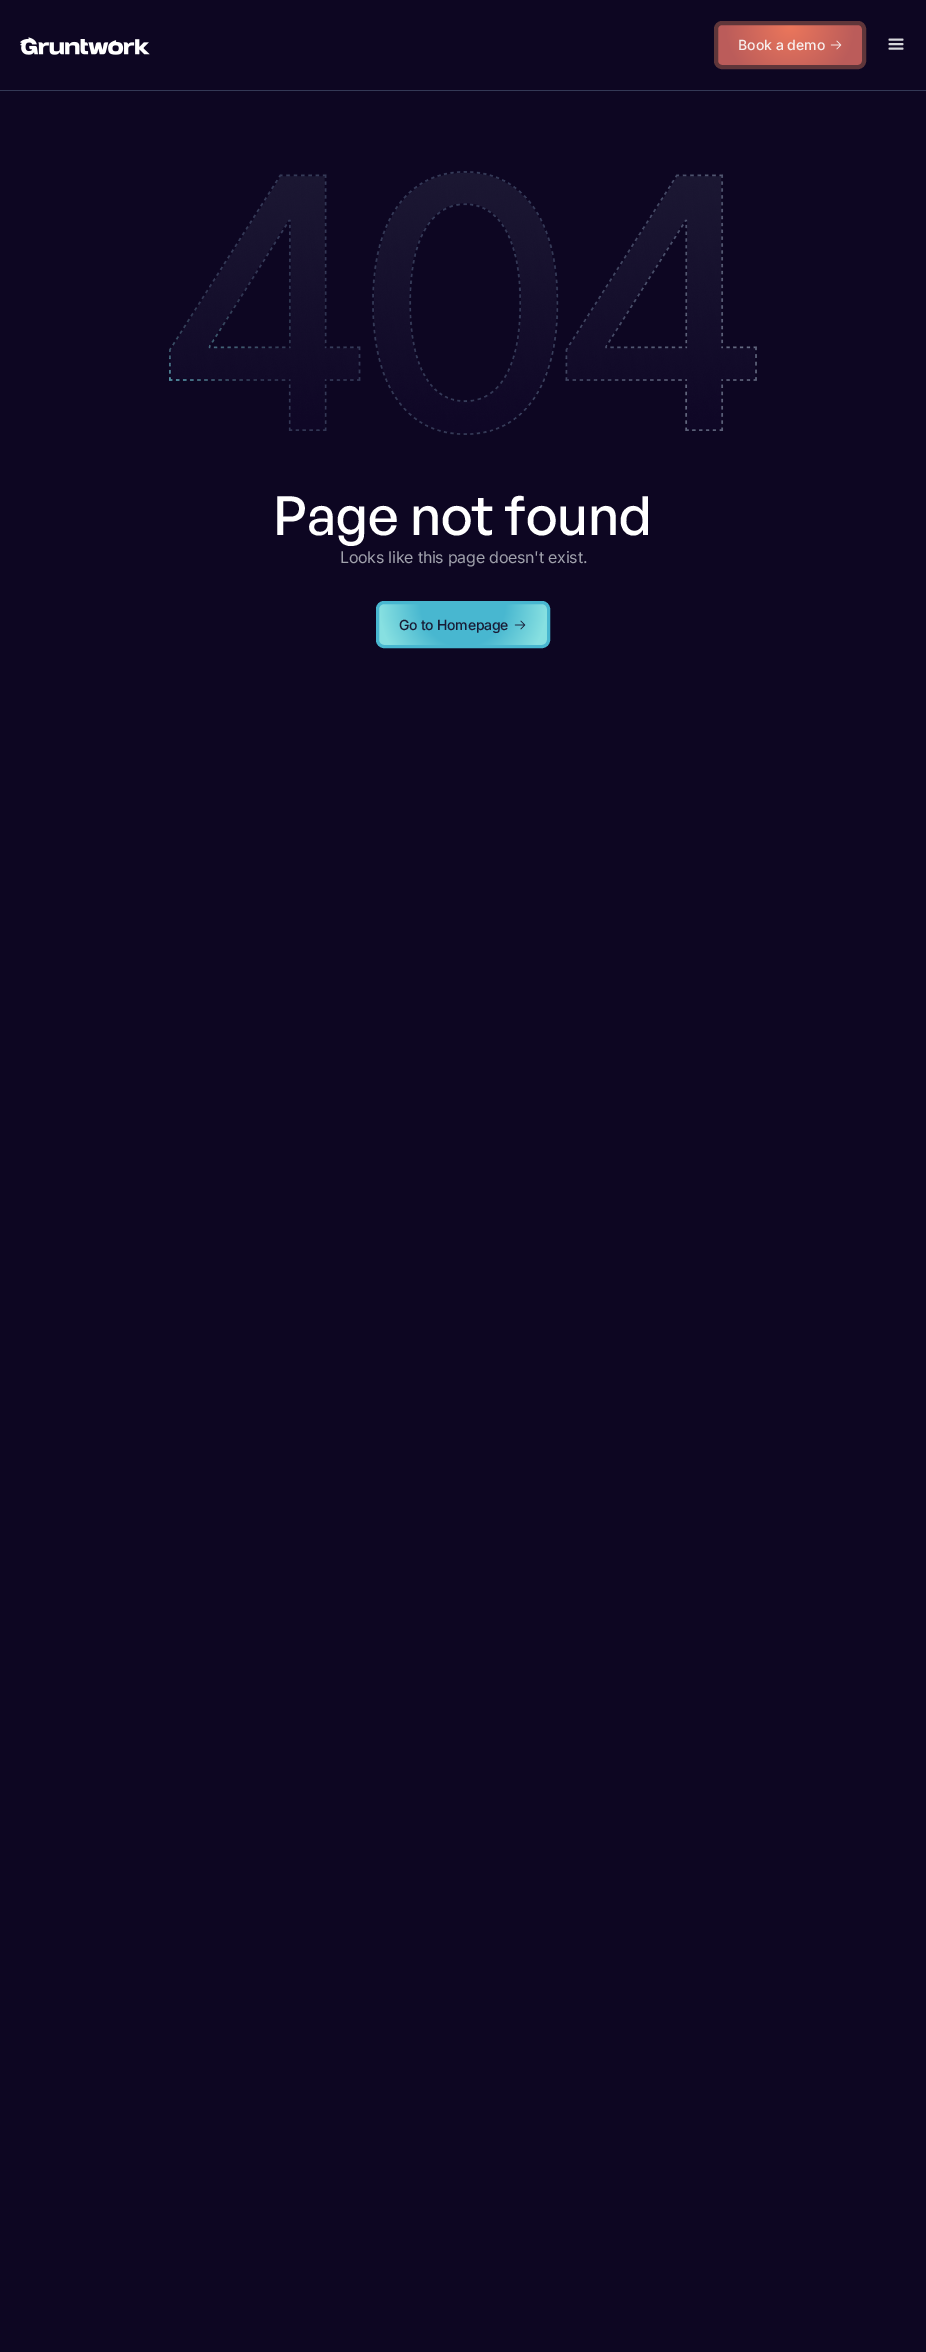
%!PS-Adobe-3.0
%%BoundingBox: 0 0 926 2352
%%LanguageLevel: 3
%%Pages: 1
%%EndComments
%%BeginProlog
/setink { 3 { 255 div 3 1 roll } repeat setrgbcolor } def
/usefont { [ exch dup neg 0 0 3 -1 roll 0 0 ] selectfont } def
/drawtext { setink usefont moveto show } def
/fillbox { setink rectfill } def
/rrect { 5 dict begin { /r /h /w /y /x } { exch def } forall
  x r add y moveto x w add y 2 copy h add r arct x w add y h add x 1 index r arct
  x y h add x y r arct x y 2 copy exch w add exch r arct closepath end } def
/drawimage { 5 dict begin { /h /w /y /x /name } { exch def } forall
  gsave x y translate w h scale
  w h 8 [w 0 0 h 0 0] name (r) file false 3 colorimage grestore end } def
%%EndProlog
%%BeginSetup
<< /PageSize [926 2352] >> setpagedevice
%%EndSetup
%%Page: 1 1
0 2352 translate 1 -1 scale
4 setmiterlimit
0 0 926 2352 13 6 34 fillbox
0 90 926 1 52 57 86 fillbox
(assets/img1.rgb) 20 37 130 18 drawimage
gsave 718 25 moveto 862 25 lineto 862 65 lineto 718 65 lineto closepath clip newpath 790 25 translate 82 82 scale
<< /ShadingType 3 /ColorSpace /DeviceRGB /Coords [0 0 0 0 0 1] /Extend [true true] /Function << /FunctionType 3 /Domain [0 1] /Functions [<< /FunctionType 2 /Domain [0 1] /C0 [0.925 0.467 0.361] /C1 [0.733 0.361 0.353] /N 1 >> << /FunctionType 2 /Domain [0 1] /C0 [0.733 0.361 0.353] /C1 [0.733 0.361 0.353] /N 1 >>] /Bounds [0.8] /Encode [0 1 0 1] >> >> shfill grestore
95 54 58 setink
4 setlinewidth
716 23 148 44 6 rrect stroke
(Book a demo) 738 50 /Inter-Medium 14 248 239 237 drawtext
(assets/img2.rgb) 830 40 12 10 drawimage
(assets/img3.rgb) 888 38 16 12 drawimage
(assets/img4.rgb) 169 171 588 264 drawimage
(Page not found) 273 535 /GeneralSans-Medium 54 255 255 255 drawtext
/Inter-Regular 16 usefont
160 161 172 setink
340 563 moveto -0.25 0 (Looks like this page doesn't exist.) ashow
gsave 379 604 moveto 547 604 lineto 547 645 lineto 379 645 lineto closepath clip newpath 463 604 translate 84 84 scale
<< /ShadingType 3 /ColorSpace /DeviceRGB /Coords [0 0 0 0 0 1] /Extend [true true] /Function << /FunctionType 3 /Domain [0 1] /Functions [<< /FunctionType 2 /Domain [0 1] /C0 [0.282 0.718 0.816] /C1 [0.282 0.718 0.816] /N 1 >> << /FunctionType 2 /Domain [0 1] /C0 [0.282 0.718 0.816] /C1 [0.529 0.878 0.882] /N 1 >>] /Bounds [0.5] /Encode [0 1 0 1] >> >> shfill grestore
72 183 208 setink
3 setlinewidth
377.5 602.5 171 44 6.5 rrect stroke
/Inter-Medium 14 usefont
25 28 53 setink
399 630 moveto -0.25 0 (Go to Homepage) ashow
(assets/img5.rgb) 514 620 12 10 drawimage
showpage
%%EOF
